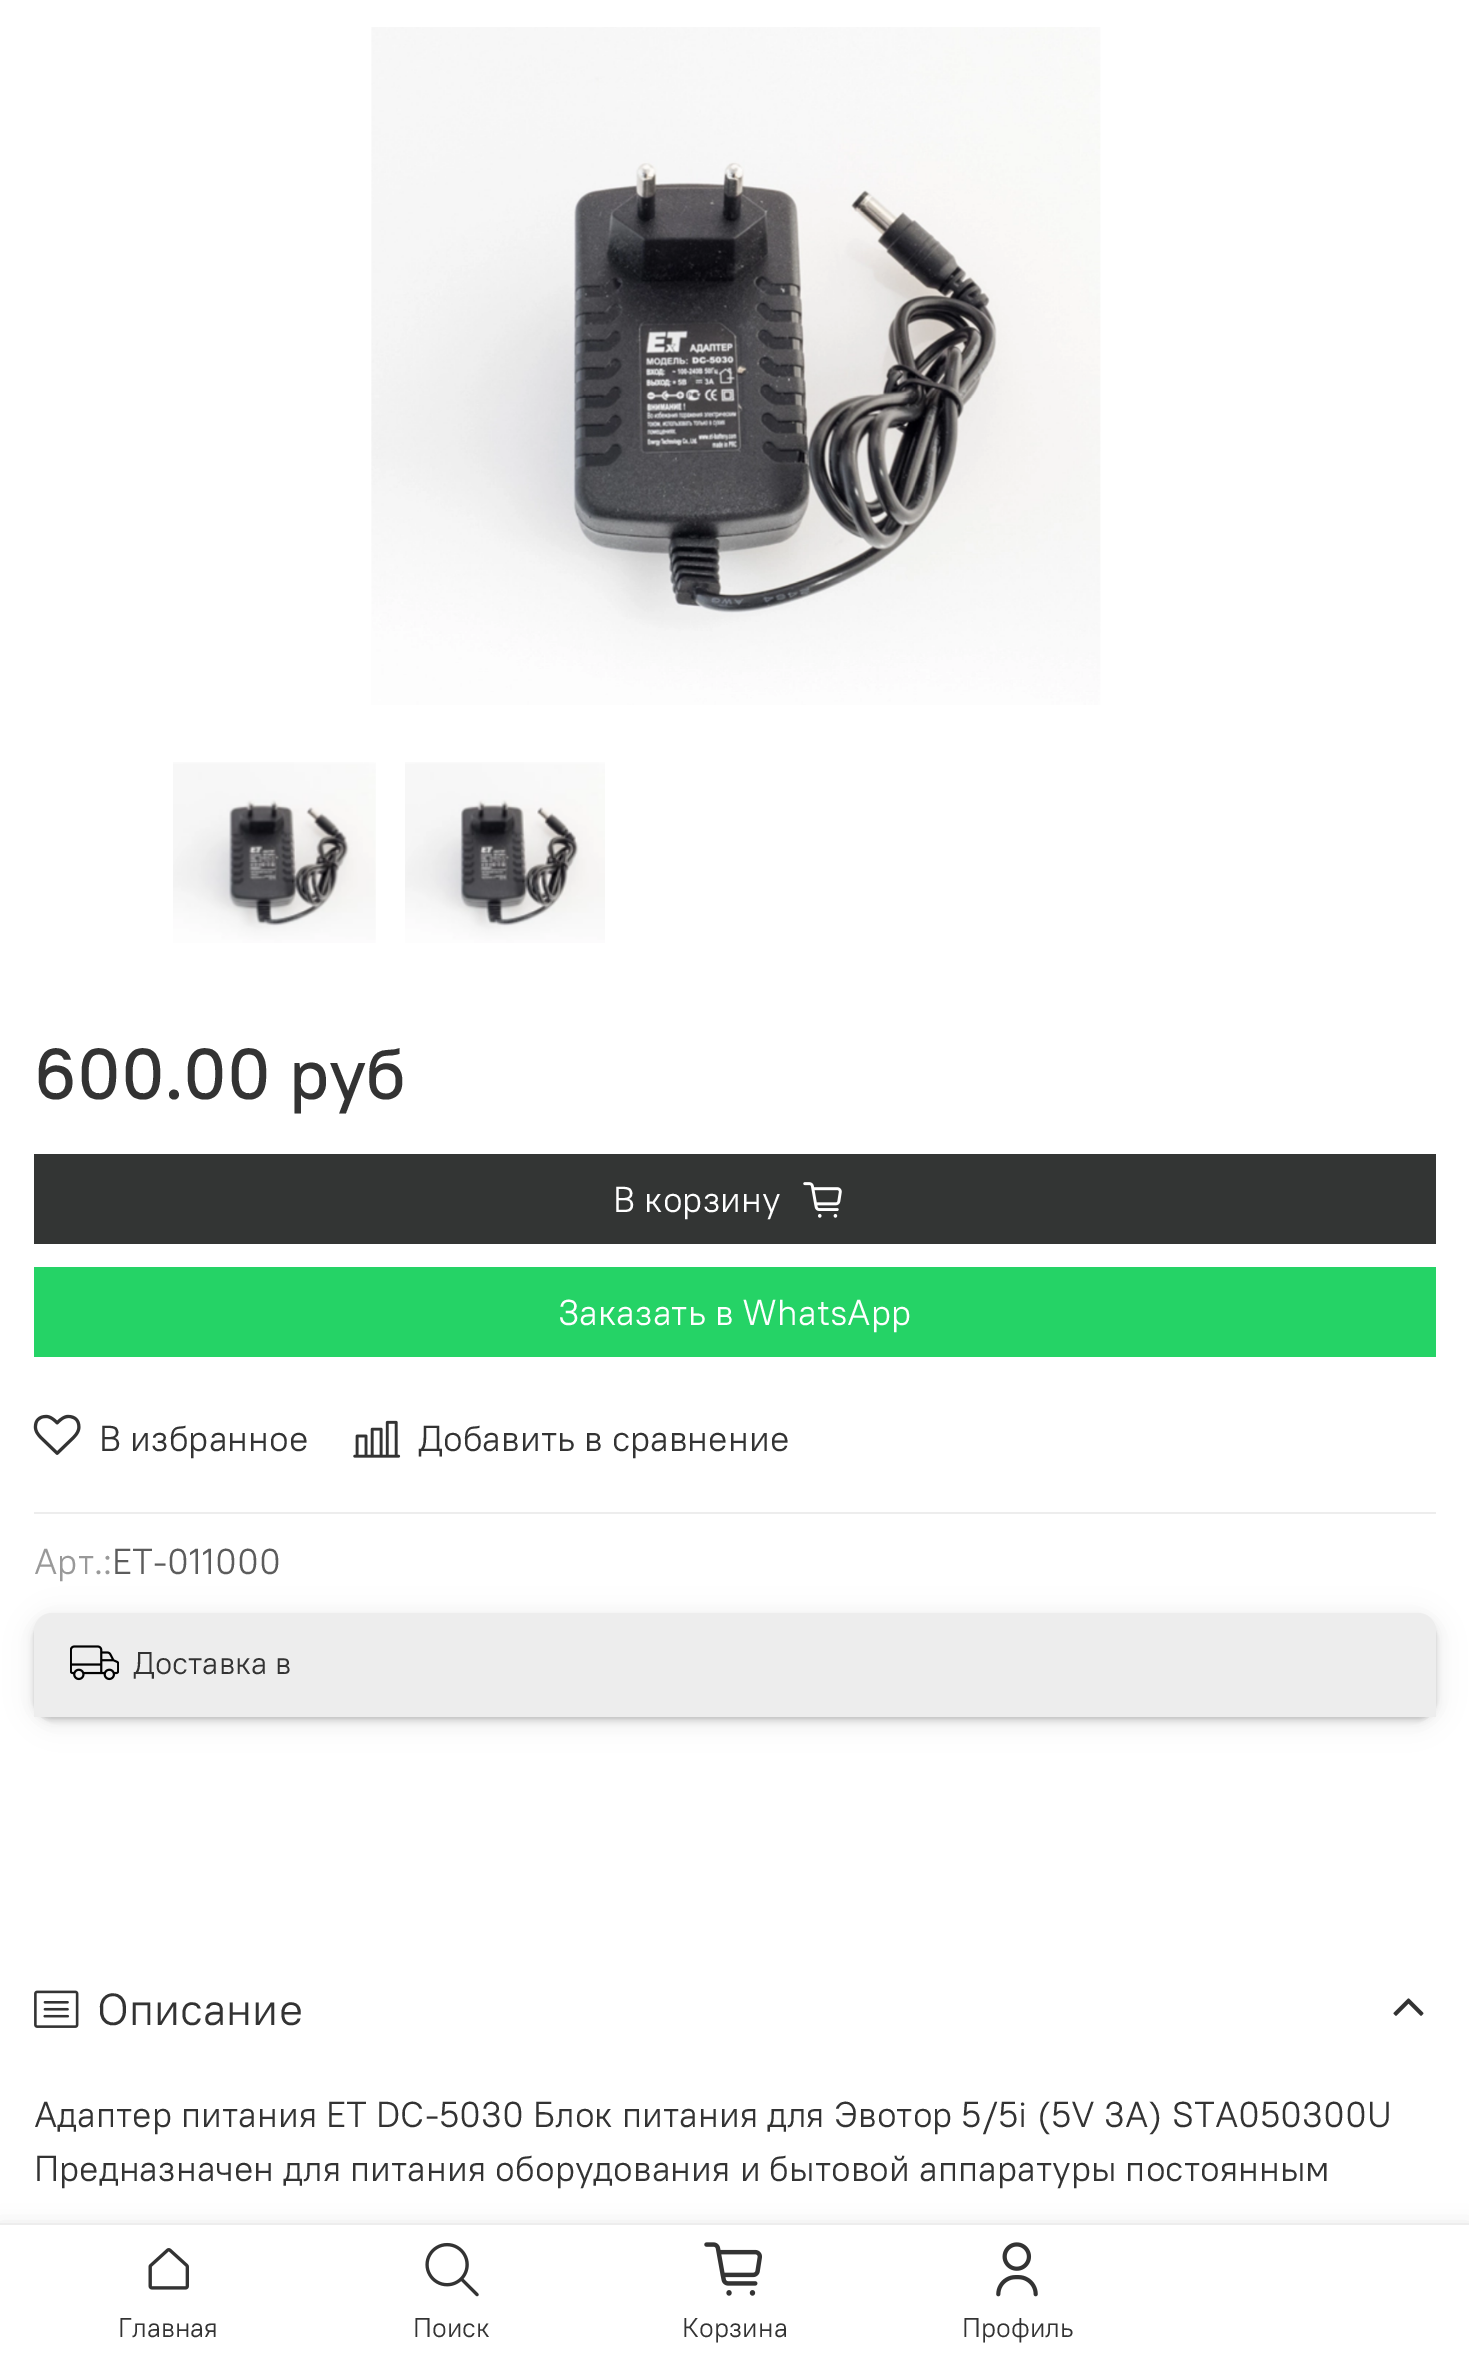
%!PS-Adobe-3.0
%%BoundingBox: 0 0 1469 2362
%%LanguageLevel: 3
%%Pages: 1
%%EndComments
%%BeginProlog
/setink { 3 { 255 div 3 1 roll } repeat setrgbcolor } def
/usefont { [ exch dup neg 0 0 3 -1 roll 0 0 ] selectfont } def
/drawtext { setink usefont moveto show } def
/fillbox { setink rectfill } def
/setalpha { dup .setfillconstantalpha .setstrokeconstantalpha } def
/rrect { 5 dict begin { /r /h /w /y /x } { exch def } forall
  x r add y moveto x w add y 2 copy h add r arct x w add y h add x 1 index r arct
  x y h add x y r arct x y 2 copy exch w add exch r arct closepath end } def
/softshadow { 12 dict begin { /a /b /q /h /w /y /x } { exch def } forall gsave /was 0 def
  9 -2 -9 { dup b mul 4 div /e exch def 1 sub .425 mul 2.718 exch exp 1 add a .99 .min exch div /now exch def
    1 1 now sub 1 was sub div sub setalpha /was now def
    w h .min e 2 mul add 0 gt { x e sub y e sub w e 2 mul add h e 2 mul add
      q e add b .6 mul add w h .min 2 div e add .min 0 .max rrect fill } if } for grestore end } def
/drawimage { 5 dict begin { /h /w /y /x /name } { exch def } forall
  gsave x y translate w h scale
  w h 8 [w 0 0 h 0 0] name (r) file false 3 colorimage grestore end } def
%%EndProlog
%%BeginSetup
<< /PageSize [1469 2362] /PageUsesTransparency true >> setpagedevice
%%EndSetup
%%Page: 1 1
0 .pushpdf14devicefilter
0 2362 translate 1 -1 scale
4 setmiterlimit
0 0 1469 2362 255 255 255 fillbox
(assets/img1.rgb) 371 27 730 678 drawimage
(assets/img2.rgb) 173 762 203 181 drawimage
(assets/img3.rgb) 405 762 200 181 drawimage
(600.00 руб) 34 1099 /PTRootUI-Medium 72 51 51 51 drawtext
34 1154 1402 90 51 53 52 fillbox
(В корзину) 613 1212 /PTRootUI-Regular 36 255 255 255 drawtext
(assets/img4.rgb) 803 1182 39 36 drawimage
34 1267 1402 90 37 211 102 fillbox
(Заказать в WhatsApp) 558 1325 /PTRootUI-Regular 36 255 255 255 drawtext
(assets/img5.rgb) 33 1414 48 41 drawimage
(В избранное) 99 1451 /PTRootUI-Regular 36 51 51 51 drawtext
(assets/img6.rgb) 353 1420 48 38 drawimage
(Добавить в сравнение) 418 1451 /PTRootUI-Regular 36 51 51 51 drawtext
34 1512 1402 2 237 237 237 fillbox
(Арт.:) 34 1574 /PTRootUI-Regular 36 153 153 153 drawtext
(ET-011000) 112 1574 /PTRootUI-Regular 36 92 92 92 drawtext
0 0 0 setink
34 1618 1402 103 18 18 0.05 softshadow
34 1618 1402 103 18 9 0.05 softshadow
34 1618 1402 103 18 4.5 0.05 softshadow
34 1618 1402 103 18 2 0.05 softshadow
34 1616 1402 103 18 1 0.05 softshadow
237 237 237 setink
52 1613 moveto 1418 1613 lineto 1428 1613 1436 1621 1436 1631 curveto 1436 1717 lineto 34 1717 lineto 34 1631 lineto 34 1621 42 1613 52 1613 curveto closepath fill
(assets/img7.rgb) 70 1645 49 36 drawimage
(Доставка в) 133 1674 /PTRootUI-Regular 31.5 51 51 51 drawtext
(assets/img8.rgb) 34 1990 45 38 drawimage
(Описание) 97 2025 /PTRootUI-Regular 45 51 51 51 drawtext
(assets/img9.rgb) 1393 1998 31 18 drawimage
(Адаптер питания ЕТ DC-5030 Блок питания для Эвотор 5/5i \(5V 3A\) STA050300U) 34 2127 /PTRootUI-Regular 36 51 51 51 drawtext
(Предназначен для питания оборудования и бытовой аппаратуры постоянным) 34 2181 /PTRootUI-Regular 36 51 51 51 drawtext
0 0 0 setink
0 2228 1469 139 0 11 0.12 softshadow
0 2225 1469 137 255 255 255 fillbox
0 2223 1469 2 237 237 237 fillbox
(assets/img10.rgb) 148 2248 41 42 drawimage
(Главная) 118 2337 /PTRootUI-Regular 27 51 51 51 drawtext
(assets/img11.rgb) 425 2242 54 55 drawimage
(Поиск) 413 2337 /PTRootUI-Regular 27 51 51 51 drawtext
(assets/img12.rgb) 704 2242 58 54 drawimage
(Корзина) 682 2337 /PTRootUI-Regular 27 51 51 51 drawtext
(assets/img13.rgb) 996 2242 42 55 drawimage
(Профиль) 962 2337 /PTRootUI-Regular 27 51 51 51 drawtext
.poppdf14devicefilter showpage
%%EOF
